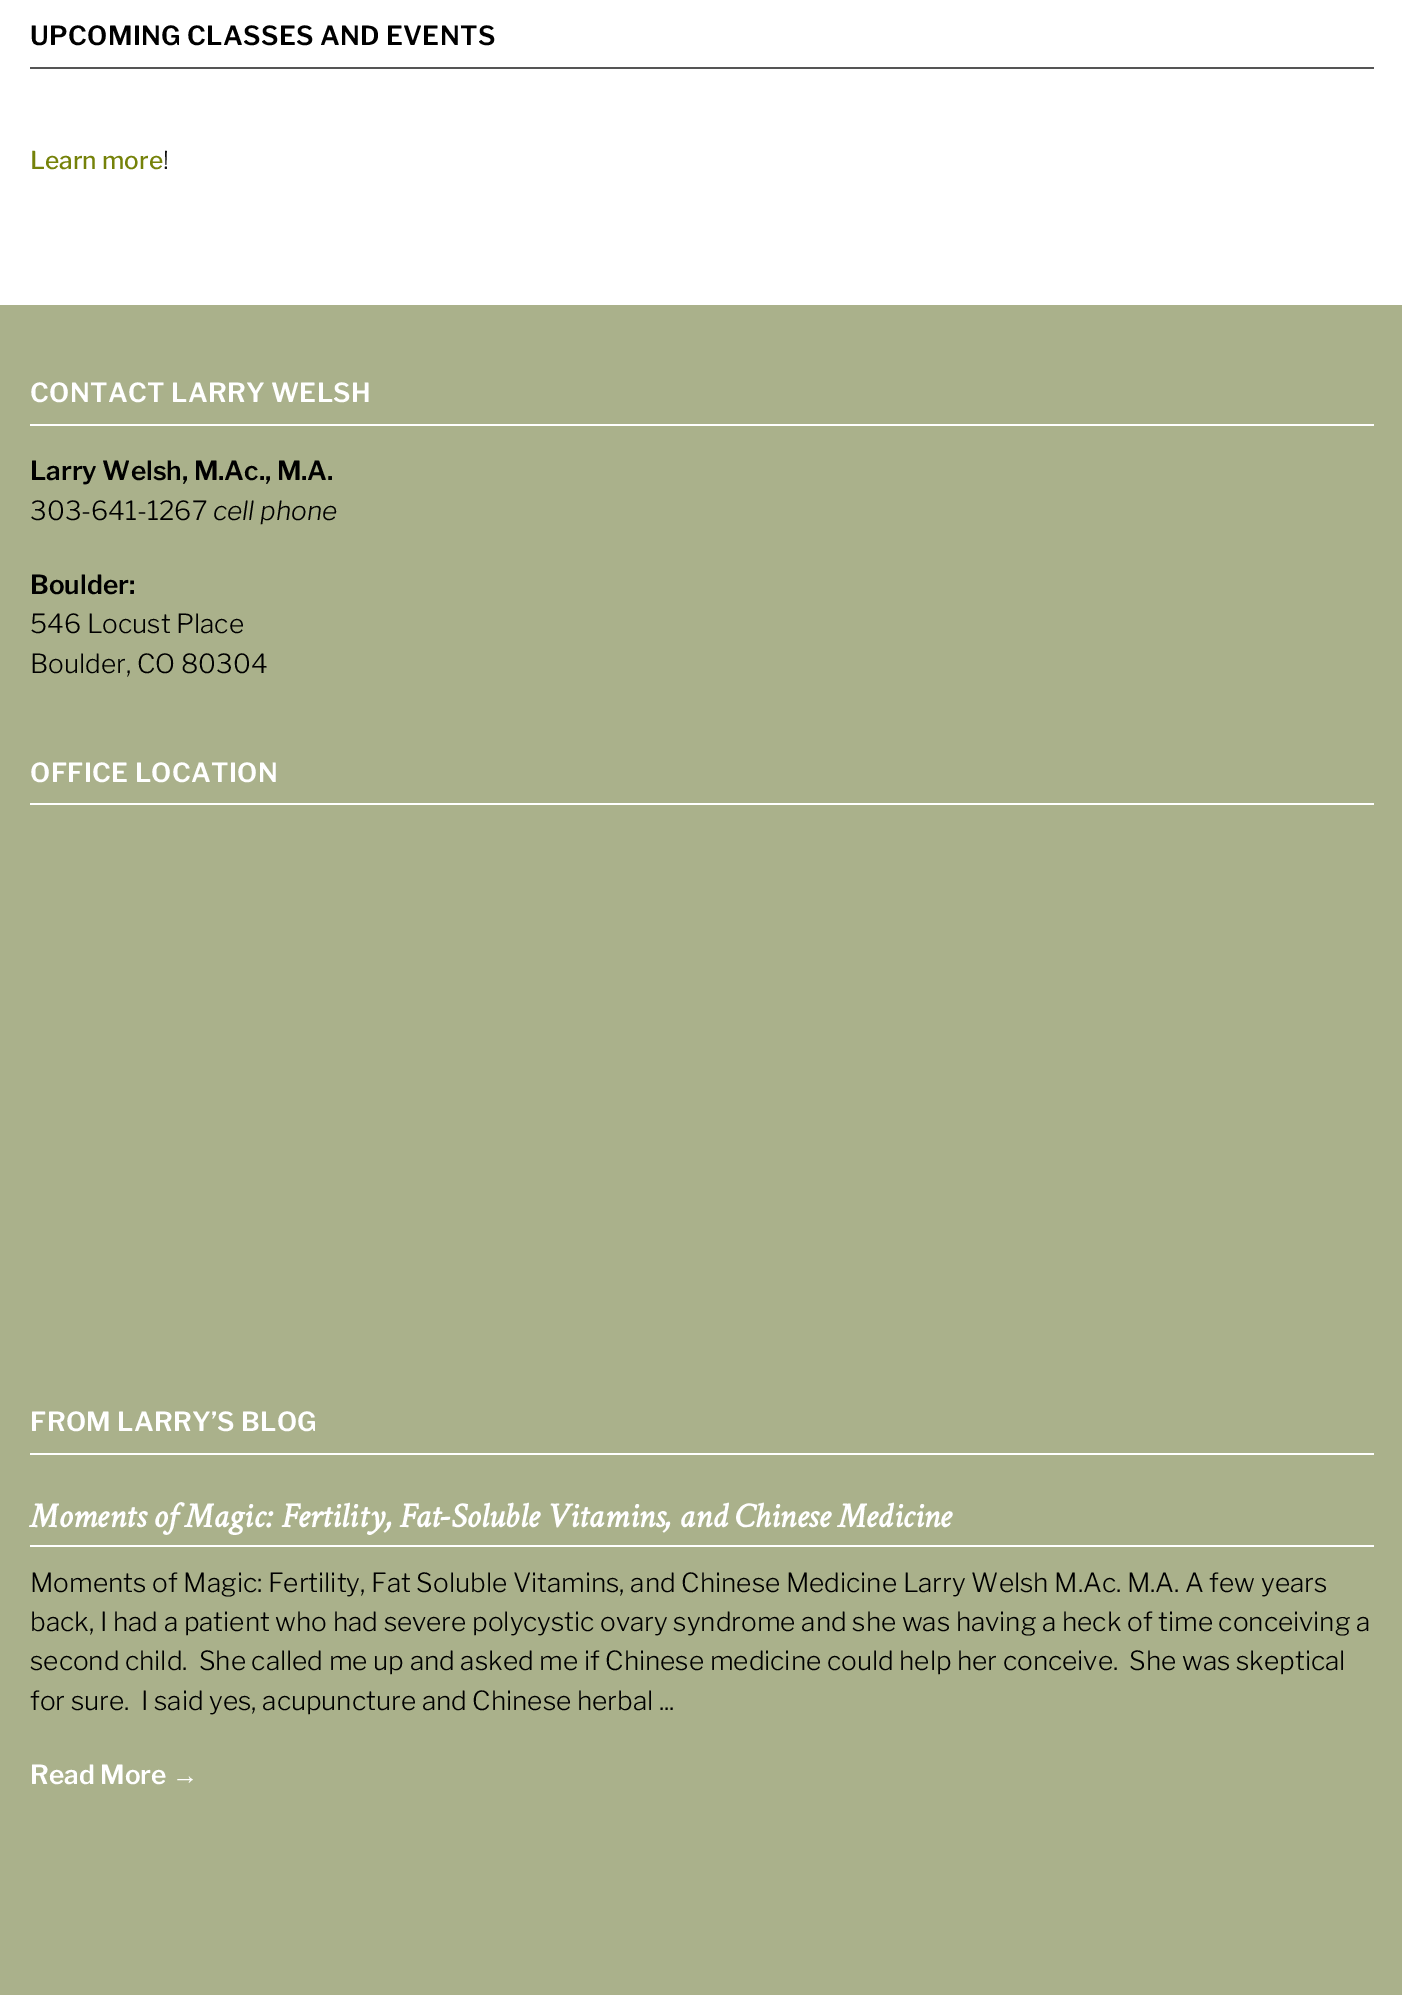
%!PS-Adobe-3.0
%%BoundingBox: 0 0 1402 1995
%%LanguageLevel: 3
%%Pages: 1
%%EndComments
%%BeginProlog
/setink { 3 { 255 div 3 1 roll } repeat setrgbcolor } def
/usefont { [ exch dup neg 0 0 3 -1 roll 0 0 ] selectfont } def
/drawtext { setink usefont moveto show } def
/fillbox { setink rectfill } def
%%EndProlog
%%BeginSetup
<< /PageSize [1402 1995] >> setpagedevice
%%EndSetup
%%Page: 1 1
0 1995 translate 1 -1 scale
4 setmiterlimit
0 0 1402 1995 255 255 255 fillbox
30 67 1344 2 85 85 85 fillbox
/LibreFranklin-SemiBold 26.25 usefont
0 0 0 setink
30 45 moveto 0.35 0 (UPCOMING CLASSES AND EVENTS) ashow
(Learn more) 30 169 /LibreFranklin-Medium 24.5 117 130 9 drawtext
(!) 163 169 /LibreFranklin-Light 24.5 17 17 17 drawtext
0 305 1402 1690 170 177 139 fillbox
30 424 1344 2 255 255 255 fillbox
/LibreFranklin-SemiBold 26.25 usefont
30 402 moveto 0.35 0 (CONTACT LARRY WELSH) ashow
(Larry Welsh, M.Ac., M.A.) 30 480 /LibreFranklin-SemiBold 26.25 0 0 0 drawtext
(303-641-1267) 30 520 /LibreFranklin-Light 26.25 0 0 0 drawtext
(cell phone) 213 520 /LibreFranklin-LightItalic 26.25 0 0 0 drawtext
(Boulder:) 30 594 /LibreFranklin-SemiBold 26.25 0 0 0 drawtext
(546 Locust Place) 30 633 /LibreFranklin-Light 26.25 0 0 0 drawtext
(Boulder, CO 80304) 30 673 /LibreFranklin-Light 26.25 0 0 0 drawtext
30 803 1344 2 255 255 255 fillbox
/LibreFranklin-SemiBold 26.25 usefont
30 782 moveto 0.35 0 (OFFICE LOCATION) ashow
30 1453 1344 2 255 255 255 fillbox
30 1431 moveto 0.35 0 (FROM LARRY’S BLOG) ashow
30 1545 1344 2 255 255 255 fillbox
(Moments of Magic: Fertility, Fat-Soluble Vitamins, and Chinese Medicine) 30 1527 /CrimsonText-BoldItalic 35 255 255 255 drawtext
(Moments of Magic: Fertility, Fat Soluble Vitamins, and Chinese Medicine Larry Welsh M.Ac. M.A. A few years) 30 1592 /LibreFranklin-Light 26.25 0 0 0 drawtext
(back, I had a patient who had severe polycystic ovary syndrome and she was having a heck of time conceiving a) 30 1631 /LibreFranklin-Light 26.25 0 0 0 drawtext
(second child.  She called me up and asked me if Chinese medicine could help her conceive.  She was skeptical) 30 1670 /LibreFranklin-Light 26.25 0 0 0 drawtext
(for sure.  I said yes, acupuncture and Chinese herbal ...) 30 1710 /LibreFranklin-Light 26.25 0 0 0 drawtext
(Read More) 30 1784 /LibreFranklin-SemiBold 26.25 255 255 255 drawtext
(→) 172 1784 /LiberationSans-Bold 26.25 255 255 255 drawtext
showpage
%%EOF
